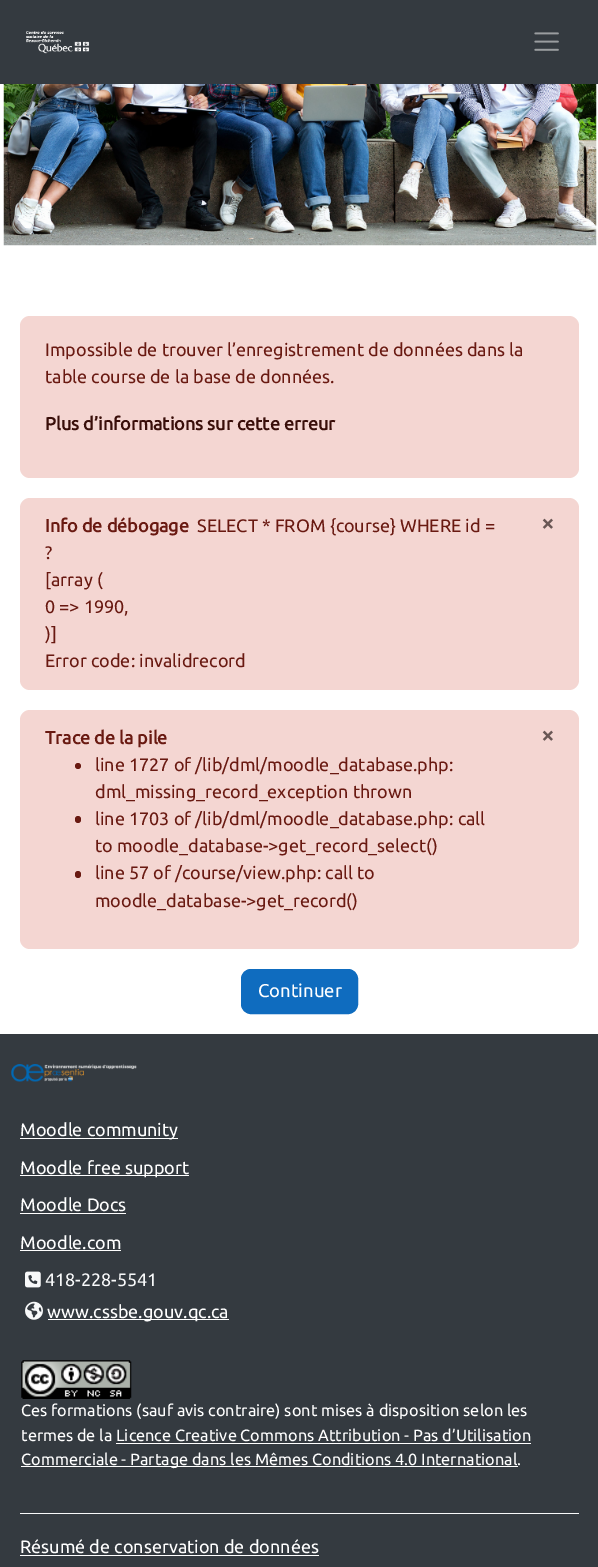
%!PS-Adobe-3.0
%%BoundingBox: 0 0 598 1567
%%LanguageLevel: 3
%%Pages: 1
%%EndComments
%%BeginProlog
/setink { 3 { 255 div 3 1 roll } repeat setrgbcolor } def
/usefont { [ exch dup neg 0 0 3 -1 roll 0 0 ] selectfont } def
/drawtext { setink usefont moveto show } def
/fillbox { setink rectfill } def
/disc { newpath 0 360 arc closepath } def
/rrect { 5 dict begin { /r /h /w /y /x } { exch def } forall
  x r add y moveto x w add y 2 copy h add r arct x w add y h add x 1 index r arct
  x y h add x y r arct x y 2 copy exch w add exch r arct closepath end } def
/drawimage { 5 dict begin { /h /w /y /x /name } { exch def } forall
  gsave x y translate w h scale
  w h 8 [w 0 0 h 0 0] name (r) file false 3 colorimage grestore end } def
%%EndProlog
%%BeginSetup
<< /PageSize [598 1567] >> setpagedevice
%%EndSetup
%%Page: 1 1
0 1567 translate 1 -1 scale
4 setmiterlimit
0 0 598 1567 255 255 255 fillbox
0 0 598 84 52 58 64 fillbox
(assets/img1.rgb) 26 31 64 23 drawimage
(assets/img2.rgb) 534 32 25 19 drawimage
(assets/img3.rgb) 3 84 594 162 drawimage
244 214 210 setink
20 316 559 162 10 rrect fill
(Impossible de trouver l’enregistrement de données dans la) 45 356 /Ubuntu-Regular 18 105 25 17 drawtext
(table course de la base de données.) 45 383 /Ubuntu-Regular 18 105 25 17 drawtext
(Plus d’informations sur cette erreur) 45 430 /Ubuntu-Bold 18 57 14 9 drawtext
244 214 210 setink
20 498 559 192 10 rrect fill
(Info de débogage) 45 532 /Ubuntu-Bold 18 105 25 17 drawtext
(SELECT * FROM {course} WHERE id =) 197 532 /Ubuntu-Regular 18 105 25 17 drawtext
(×) 541 531 /Ubuntu-Bold 23 105 87 85 drawtext
(?) 45 559 /Ubuntu-Regular 18 105 25 17 drawtext
([array \() 45 586 /Ubuntu-Regular 18 105 25 17 drawtext
(0 => 1990,) 45 613 /Ubuntu-Regular 18 105 25 17 drawtext
(\)]) 45 640 /Ubuntu-Regular 18 105 25 17 drawtext
(Error code: invalidrecord) 45 667 /Ubuntu-Regular 18 105 25 17 drawtext
244 214 210 setink
20 710 559 239 10 rrect fill
(Trace de la pile) 45 744 /Ubuntu-Bold 18 105 25 17 drawtext
(×) 541 743 /Ubuntu-Bold 23 105 87 85 drawtext
105 25 17 setink
78 766 3 disc fill
(line 1727 of /lib/dml/moodle_database.php:) 95 771 /Ubuntu-Regular 18 105 25 17 drawtext
(dml_missing_record_exception thrown) 95 798 /Ubuntu-Regular 18 105 25 17 drawtext
75 816 6 7 3 rrect fill
(line 1703 of /lib/dml/moodle_database.php: call) 95 825 /Ubuntu-Regular 18 105 25 17 drawtext
(to moodle_database->get_record_select\(\)) 95 852 /Ubuntu-Regular 18 105 25 17 drawtext
75 871 6 7 3 rrect fill
(line 57 of /course/view.php: call to) 95 879 /Ubuntu-Regular 18 105 25 17 drawtext
(moodle_database->get_record\(\)) 95 907 /Ubuntu-Regular 18 105 25 17 drawtext
15 108 191 setink
241.5 969.5 116 44 9.5 rrect gsave fill grestore
stroke
(Continuer) 258 997 /Ubuntu-Regular 18.5 255 255 255 drawtext
0 1034 598 533 52 58 64 fillbox
(assets/img4.rgb) 11 1064 126 18 drawimage
20 1138 158 1 255 255 255 fillbox
(Moodle community) 20 1136 /Ubuntu-Regular 18 255 255 255 drawtext
20 1175 169 1 255 255 255 fillbox
(Moodle free support) 20 1174 /Ubuntu-Regular 18 255 255 255 drawtext
(Moodle Docs) 20 1211 /Ubuntu-Regular 18 255 255 255 drawtext
20 1213 106 1 255 255 255 fillbox
(Moodle.com) 20 1249 /Ubuntu-Regular 18 255 255 255 drawtext
20 1250 101 1 255 255 255 fillbox
(assets/img5.rgb) 25 1271 16 17 drawimage
(418-228-5541) 45 1286 /Ubuntu-Regular 18 248 249 250 drawtext
(assets/img6.rgb) 25 1301 18 19 drawimage
48 1319 181 1 255 255 255 fillbox
(www.cssbe.gouv.qc.ca) 47 1318 /Ubuntu-Regular 18 255 255 255 drawtext
(assets/img7.rgb) 21 1360 111 39 drawimage
(Ces formations \(sauf avis contraire\) sont mises à disposition selon les) 21 1416 /Ubuntu-Regular 16.25 255 255 255 drawtext
(termes de la Licence Creative Commons Attribution - Pas d’Utilisation) 21 1441 /Ubuntu-Regular 16.25 255 255 255 drawtext
21 1466 497 1 255 255 255 fillbox
(Commerciale - Partage dans les Mêmes Conditions 4.0 International.) 21 1465 /Ubuntu-Regular 16.25 255 255 255 drawtext
116 1443 415 1 255 255 255 fillbox
20 1513 559 1 248 249 250 fillbox
(Résumé de conservation de données) 20 1553 /Ubuntu-Regular 18 255 255 255 drawtext
20 1555 299 1 255 255 255 fillbox
showpage
%%EOF
